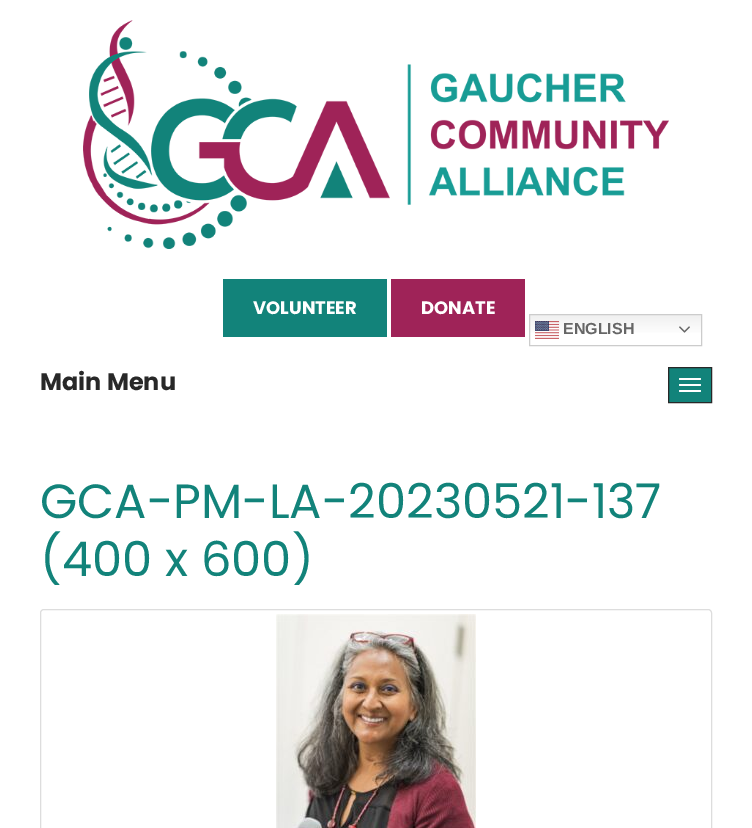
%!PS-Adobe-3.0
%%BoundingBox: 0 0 752 828
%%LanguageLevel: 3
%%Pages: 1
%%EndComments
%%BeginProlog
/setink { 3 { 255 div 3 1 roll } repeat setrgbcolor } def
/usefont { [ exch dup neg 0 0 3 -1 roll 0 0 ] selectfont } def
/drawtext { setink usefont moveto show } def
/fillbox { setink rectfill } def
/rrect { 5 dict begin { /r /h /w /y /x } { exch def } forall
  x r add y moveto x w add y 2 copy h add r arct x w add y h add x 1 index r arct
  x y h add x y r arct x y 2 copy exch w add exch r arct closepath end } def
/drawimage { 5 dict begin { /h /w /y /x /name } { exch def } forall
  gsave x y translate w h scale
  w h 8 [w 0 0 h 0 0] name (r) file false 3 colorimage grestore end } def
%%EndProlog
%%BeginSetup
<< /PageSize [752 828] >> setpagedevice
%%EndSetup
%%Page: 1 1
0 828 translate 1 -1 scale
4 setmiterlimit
0 0 752 828 255 255 255 fillbox
(assets/img1.rgb) 83 20 586 229 drawimage
223 279 164 58 18 131 122 fillbox
(VOLUNTEER) 253 314 /Poppins-Bold 18 255 255 255 drawtext
391 279 134 58 159 35 88 fillbox
(DONATE) 421 314 /Poppins-Bold 18 255 255 255 drawtext
gsave 530 315 moveto 701 315 lineto 701 333 lineto 530 333 lineto closepath clip newpath
<< /ShadingType 2 /ColorSpace /DeviceRGB /Coords [616 314 616 346] /Extend [true true] /Function << /FunctionType 3 /Domain [0 1] /Functions [<< /FunctionType 2 /Domain [0 1] /C0 [0.937 0.937 0.937] /C1 [1 1 1] /N 1 >> << /FunctionType 2 /Domain [0 1] /C0 [1 1 1] /C1 [1 1 1] /N 1 >>] /Bounds [0.7] /Encode [0 1 0 1] >> >> shfill grestore
204 204 204 setink
529.5 314.5 172 31 rectstroke
(assets/img2.rgb) 535 321 24 18 drawimage
(ENGLISH) 563 334 /LiberationSans-Bold 16 102 102 102 drawtext
(assets/img3.rgb) 679 326 11 7 drawimage
(Main Menu) 40 390 /Poppins-Bold 24 40 40 40 drawtext
18 131 122 setink
668.5 367.5 moveto 711.5 367.5 lineto 711.5 402.5 lineto 668.5 402.5 lineto closepath gsave fill grestore
40 40 40 setink
stroke
255 255 255 setink
679 378 22 2 1 rrect fill
679 384 22 2 1 rrect fill
679 390 22 2 1 rrect fill
(GCA-PM-LA-20230521-137) 40 518 /Poppins-Regular 48 18 131 122 drawtext
(\(400 x 600\)) 40 576 /Poppins-Regular 48 18 131 122 drawtext
221 221 221 setink
40.5 609.5 671 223 3.5 rrect stroke
(assets/img4.rgb) 276 614 200 214 drawimage
showpage
%%EOF
